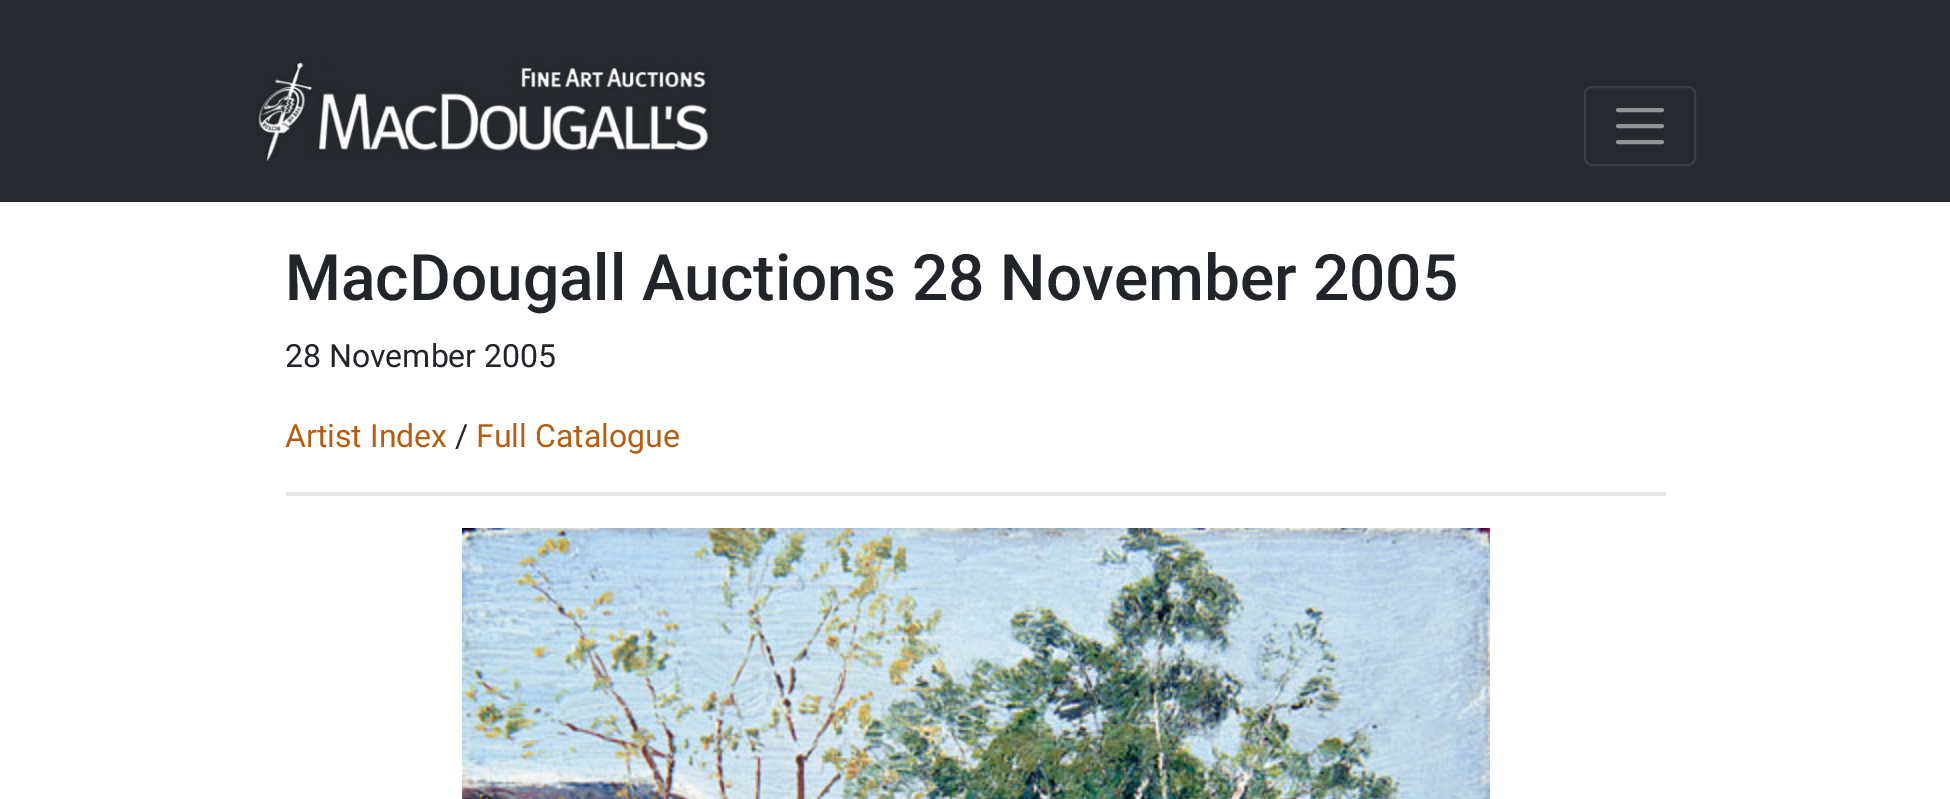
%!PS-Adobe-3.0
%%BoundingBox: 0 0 1950 799
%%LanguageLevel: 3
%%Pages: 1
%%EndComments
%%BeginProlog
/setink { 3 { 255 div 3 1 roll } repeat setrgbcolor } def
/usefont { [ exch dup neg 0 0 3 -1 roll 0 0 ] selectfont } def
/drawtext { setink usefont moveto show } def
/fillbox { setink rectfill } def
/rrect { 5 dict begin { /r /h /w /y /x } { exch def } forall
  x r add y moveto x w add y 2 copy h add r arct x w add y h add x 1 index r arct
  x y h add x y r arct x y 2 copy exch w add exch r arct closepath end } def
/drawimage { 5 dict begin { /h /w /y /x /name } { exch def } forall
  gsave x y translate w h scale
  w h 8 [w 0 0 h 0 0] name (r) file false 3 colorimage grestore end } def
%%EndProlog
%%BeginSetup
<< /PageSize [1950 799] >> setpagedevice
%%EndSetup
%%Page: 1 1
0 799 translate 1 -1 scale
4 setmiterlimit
0 0 1950 799 255 255 255 fillbox
0 0 1950 202 38 41 46 fillbox
(assets/img1.rgb) 257 61 453 101 drawimage
60 62 67 setink
2 setlinewidth
1585 87 110 78 7 rrect stroke
147 148 151 setink
4 setlinewidth
1 setlinecap
1618 110 moveto 1662 110 lineto 1618 126 moveto 1662 126 lineto 1618 142 moveto 1662 142 lineto stroke
(MacDougall Auctions 28 November 2005) 285 300 /Roboto-Medium 64 33 37 41 drawtext
(28 November 2005) 285 367 /Roboto-Regular 32 33 37 41 drawtext
(Artist Index) 285 447 /Roboto-Regular 32 179 94 20 drawtext
(/) 455 447 /Roboto-Regular 32 33 37 41 drawtext
(Full Catalogue) 476 447 /Roboto-Regular 32 179 94 20 drawtext
286 492 1380 4 230 230 230 fillbox
(assets/img2.rgb) 462 528 1028 271 drawimage
showpage
%%EOF
